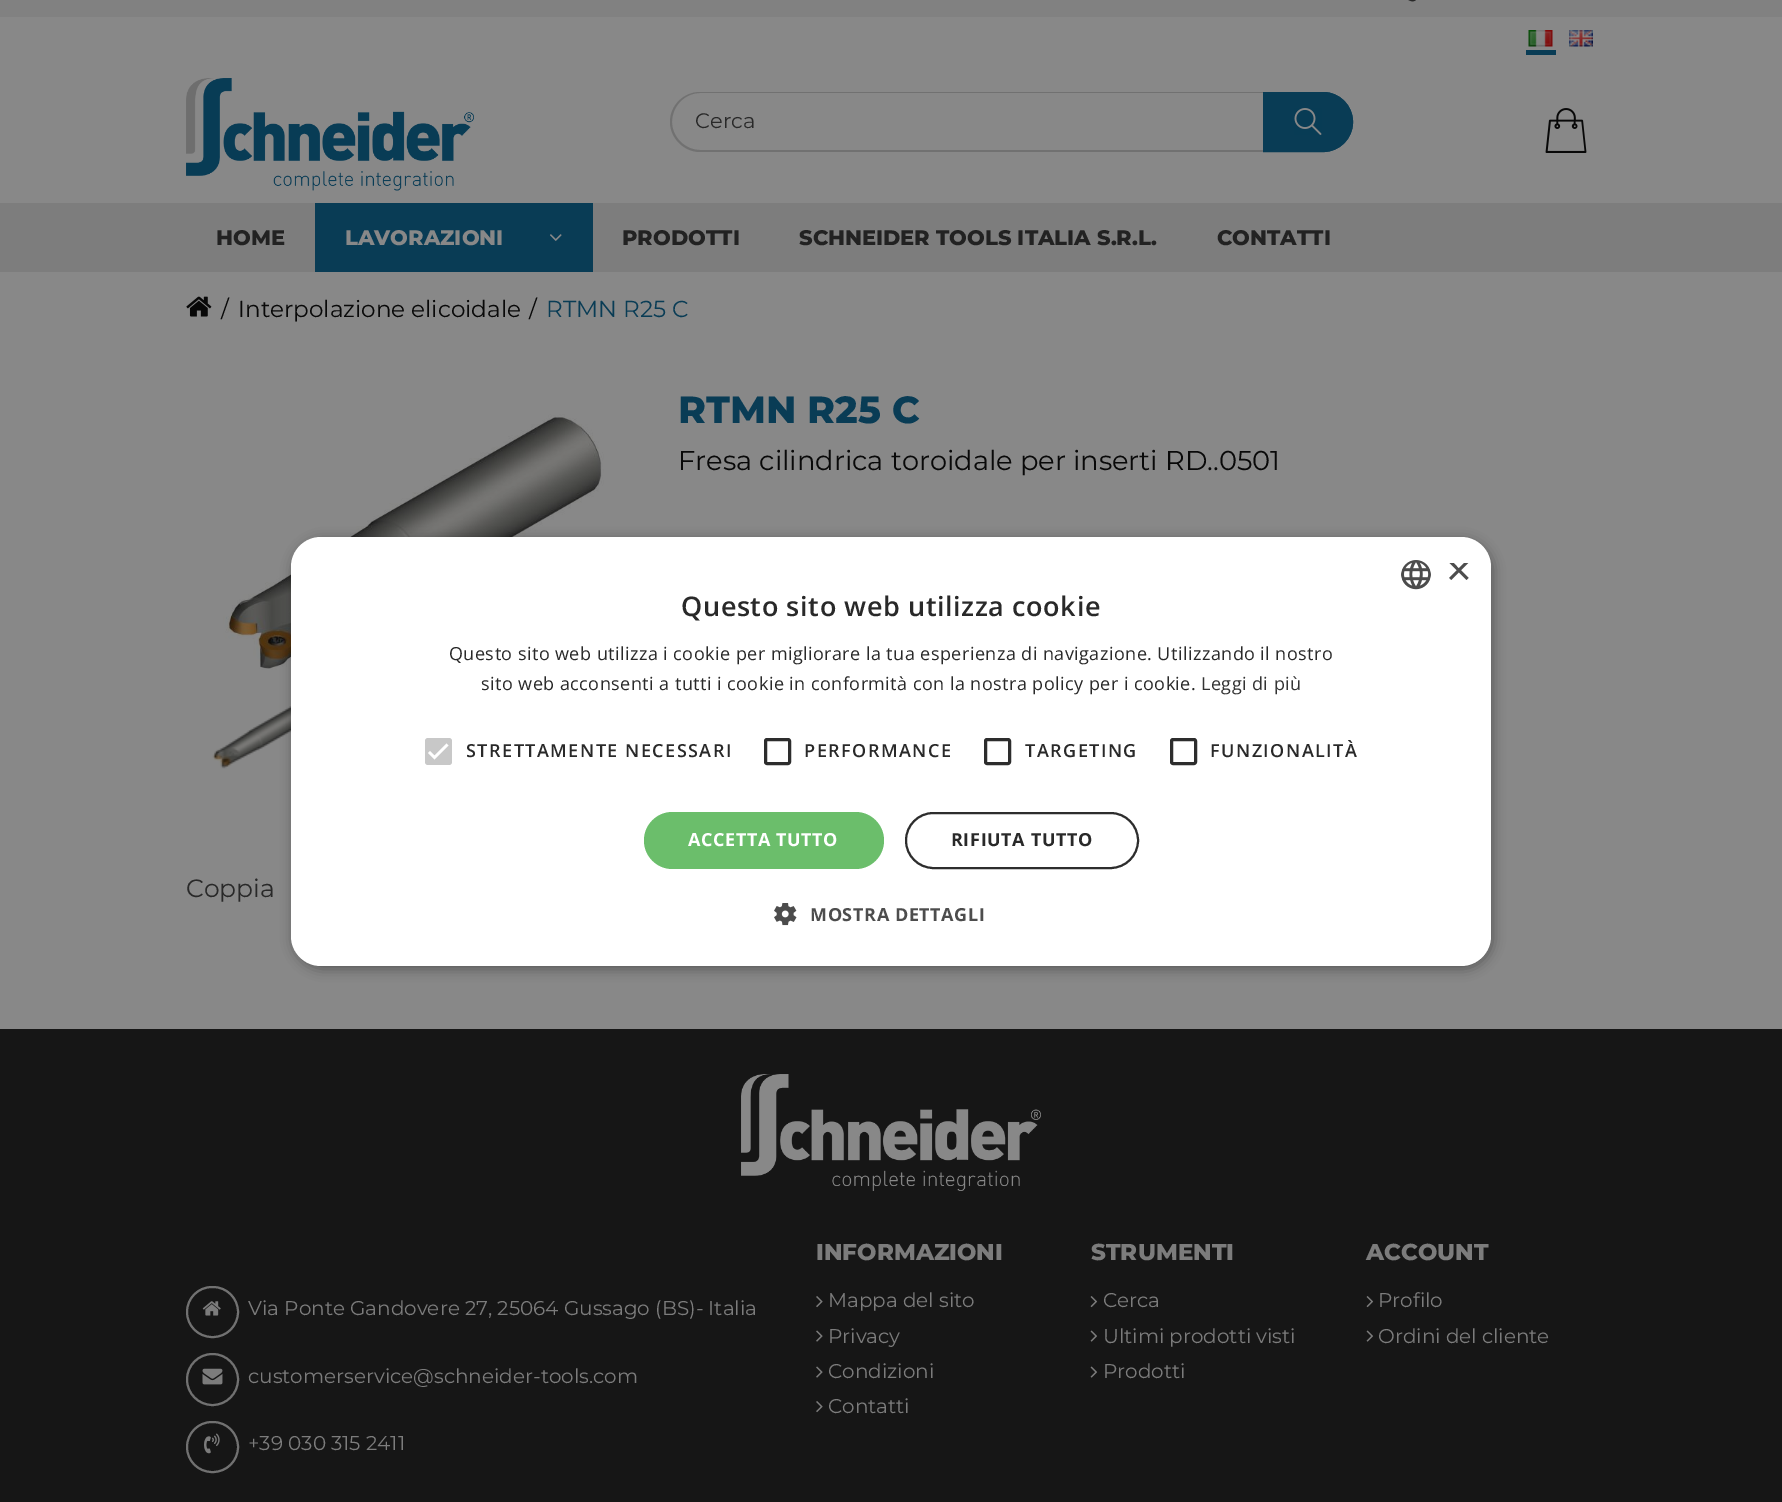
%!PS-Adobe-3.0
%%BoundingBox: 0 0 1782 1502
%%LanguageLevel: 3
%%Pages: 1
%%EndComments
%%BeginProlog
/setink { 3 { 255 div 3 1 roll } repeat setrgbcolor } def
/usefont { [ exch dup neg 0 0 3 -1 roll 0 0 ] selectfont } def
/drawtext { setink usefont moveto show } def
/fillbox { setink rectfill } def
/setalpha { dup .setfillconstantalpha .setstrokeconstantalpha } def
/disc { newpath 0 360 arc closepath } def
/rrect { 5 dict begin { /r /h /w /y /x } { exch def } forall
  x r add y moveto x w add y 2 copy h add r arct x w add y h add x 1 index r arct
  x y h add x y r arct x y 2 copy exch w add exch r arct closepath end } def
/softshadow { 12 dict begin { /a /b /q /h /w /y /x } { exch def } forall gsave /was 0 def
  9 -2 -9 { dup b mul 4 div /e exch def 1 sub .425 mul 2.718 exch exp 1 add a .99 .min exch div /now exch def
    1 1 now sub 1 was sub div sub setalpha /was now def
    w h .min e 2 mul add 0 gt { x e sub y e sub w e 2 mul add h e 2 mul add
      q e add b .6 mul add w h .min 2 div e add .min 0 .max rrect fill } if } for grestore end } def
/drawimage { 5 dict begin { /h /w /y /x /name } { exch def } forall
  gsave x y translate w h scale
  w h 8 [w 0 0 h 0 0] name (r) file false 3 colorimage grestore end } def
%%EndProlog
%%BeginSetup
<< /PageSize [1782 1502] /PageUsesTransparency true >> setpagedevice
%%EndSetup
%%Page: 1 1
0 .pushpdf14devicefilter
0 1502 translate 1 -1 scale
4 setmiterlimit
0 0 1782 1502 136 136 136 fillbox
0 0 1782 17 129 129 129 fillbox
(assets/img1.rgb) 1408 0 8 2 drawimage
(assets/img2.rgb) 1528 30 25 17 drawimage
1526 50 30 5 9 60 85 fillbox
(assets/img3.rgb) 1569 30 24 17 drawimage
(assets/img4.rgb) 186 78 288 113 drawimage
113 113 113 setink
700 92 moveto 1263 92 lineto 1263 152 lineto 700 152 lineto 684 152 670 138 670 122 curveto 670 105 684 92 700 92 curveto closepath 700 93 moveto 1263 93 lineto 1263 150 lineto 700 150 lineto 685 150 672 137 672 122 curveto 672 106 685 93 700 93 curveto closepath eofill
(Cerca) 695 128 /Montserrat-Regular 21 41 41 41 drawtext
9 60 85 setink
1263 92 moveto 1323 92 lineto 1339.5 92 1353 105.5 1353 122 curveto 1353 138.5 1339.5 152 1323 152 curveto 1263 152 lineto closepath fill
(assets/img5.rgb) 1294 108 28 27 drawimage
2 setlinewidth
1264 93 moveto 1323 93 lineto 1339 93 1352 106 1352 122 curveto 1352 138 1339 151 1323 151 curveto 1264 151 lineto closepath stroke
(assets/img6.rgb) 1545 108 42 45 drawimage
0 203 1782 69 125 125 125 fillbox
(HOME) 216 245 /Montserrat-ExtraBold 21 34 34 34 drawtext
315 203 278 69 9 60 85 fillbox
(LAVORAZIONI) 345 245 /Montserrat-ExtraBold 21 136 136 136 drawtext
(assets/img7.rgb) 550 234 12 7 drawimage
(PRODOTTI) 622 245 /Montserrat-ExtraBold 21 34 34 34 drawtext
(SCHNEIDER TOOLS ITALIA S.R.L.) 799 245 /Montserrat-ExtraBold 21 34 34 34 drawtext
(CONTATTI) 1217 245 /Montserrat-ExtraBold 21 34 34 34 drawtext
(assets/img8.rgb) 186 296 26 21 drawimage
(/) 221 317 /Montserrat-Regular 23.1 9 9 9 drawtext
(Interpolazione elicoidale) 238 317 /Montserrat-Regular 23.1 9 9 9 drawtext
(/) 529 317 /Montserrat-Regular 23.1 9 9 9 drawtext
(RTMN R25 C) 546 317 /Montserrat-Regular 23.1 9 60 85 drawtext
(assets/img9.rgb) 223 414 381 256 drawimage
(assets/img10.rgb) 212 704 79 65 drawimage
(RTMN R25 C) 678 423 /Montserrat-ExtraBold 37.75 9 60 85 drawtext
(Fresa cilindrica toroidale per inserti RD..0501) 678 470 /Montserrat-Regular 27.3 9 9 9 drawtext
(Coppia) 186 897 /Montserrat-Regular 25 41 41 41 drawtext
0 1029 1782 473 22 22 22 fillbox
(assets/img11.rgb) 741 1074 300 117 drawimage
113 113 113 setink
187 1287 51 50 25 rrect stroke
(assets/img12.rgb) 202 1301 19 15 drawimage
(Via Ponte Gandovere 27, 25064 Gussago \(BS\)- Italia) 248 1315 /Montserrat-Regular 19.95 124 124 124 drawtext
113 113 113 setink
212.5 1379.5 25.5 disc stroke
(assets/img13.rgb) 202 1368 21 17 drawimage
(customerservice@schneider-tools.com) 248 1383 /Montserrat-Regular 19.95 124 124 124 drawtext
113 113 113 setink
187 1422 51 50 25 rrect stroke
(assets/img14.rgb) 204 1433 16 21 drawimage
(+39 030 315 2411) 248 1450 /Montserrat-Regular 19.95 124 124 124 drawtext
(INFORMAZIONI) 816 1260 /Montserrat-ExtraBold 23 124 124 124 drawtext
(assets/img15.rgb) 816 1296 7 12 drawimage
(Mappa del sito) 828 1307 /Montserrat-Regular 19.95 124 124 124 drawtext
(assets/img16.rgb) 816 1330 7 12 drawimage
(Privacy) 828 1343 /Montserrat-Regular 19.95 124 124 124 drawtext
(assets/img16.rgb) 816 1366 7 12 drawimage
(Condizioni) 828 1378 /Montserrat-Regular 19.95 124 124 124 drawtext
(assets/img15.rgb) 816 1401 7 12 drawimage
(Contatti) 828 1413 /Montserrat-Regular 19.95 124 124 124 drawtext
(STRUMENTI) 1091 1260 /Montserrat-ExtraBold 23 124 124 124 drawtext
(assets/img17.rgb) 1090 1296 8 12 drawimage
(Cerca) 1103 1307 /Montserrat-Regular 19.95 124 124 124 drawtext
(assets/img18.rgb) 1090 1330 8 12 drawimage
(Ultimi prodotti visti) 1103 1343 /Montserrat-Regular 19.95 124 124 124 drawtext
(assets/img18.rgb) 1090 1366 8 12 drawimage
(Prodotti) 1103 1378 /Montserrat-Regular 19.95 124 124 124 drawtext
(ACCOUNT) 1366 1260 /Montserrat-ExtraBold 23 124 124 124 drawtext
(assets/img17.rgb) 1366 1296 8 12 drawimage
(Profilo) 1378 1307 /Montserrat-Regular 19.95 124 124 124 drawtext
(assets/img18.rgb) 1366 1330 8 12 drawimage
(Ordini del cliente) 1378 1343 /Montserrat-Regular 19.95 124 124 124 drawtext
0 0 0 setink
293 540 1200 429 30 6 0.35 softshadow
255 255 255 setink
291 537 1200 429 30 rrect fill
(assets/img19.rgb) 1401 560 30 30 drawimage
gsave
1446 563 23 22 rectclip
(×) 1446 585 /LiberationSans-Regular 44 77 77 77 drawtext
grestore
/OpenSans-SemiBold 27 usefont
41 41 41 setink
681 616 moveto 0.6 0 (Questo sito web utilizza cookie) ashow
/OpenSans-Regular 18 usefont
449 660 moveto 0.45 0 (Questo sito web utilizza i cookie per migliorare la tua esperienza di navigazione. Utilizzando il nostro) ashow
481 690 moveto 0.45 0 (sito web acconsenti a tutti i cookie in conformità con la nostra policy per i cookie.) ashow
51 51 51 setink
1201 690 moveto 0.45 0 (Leggi di più) ashow
200 200 200 setink
425 738 27 27 3 rrect fill
255 255 255 setink
2.7 setlinewidth
429 752 moveto 434.5 757.5 lineto 447.5 744.5 lineto stroke
/OpenSans-SemiBold 18 usefont
41 41 41 setink
466 757 moveto 1.5 0 (STRETTAMENTE NECESSARI) ashow
45 45 45 setink
3 setlinewidth
765.5 739.5 24 24 1.5 rrect stroke
41 41 41 setink
804 757 moveto 1.5 0 (PERFORMANCE) ashow
45 45 45 setink
985.5 739.5 24 24 1.5 rrect stroke
41 41 41 setink
1025 757 moveto 1.5 0 (TARGETING) ashow
45 45 45 setink
1171.5 739.5 24 24 1.5 rrect stroke
41 41 41 setink
1210 757 moveto 1.5 0 (FUNZIONALITÀ) ashow
107 190 107 setink
644 812 240 57 28.5 rrect fill
/OpenSans-Bold 18 usefont
255 255 255 setink
688 846 moveto 0.6 0 (ACCETTA TUTTO) ashow
45 45 45 setink
2 setlinewidth
906 813 232 55 27.5 rrect stroke
41 41 41 setink
951 846 moveto 0.6 0 (RIFIUTA TUTTO) ashow
(assets/img20.rgb) 774 903 23 23 drawimage
77 77 77 setink
810 921 moveto 0.6 0 (MOSTRA DETTAGLI) ashow
.poppdf14devicefilter showpage
%%EOF
